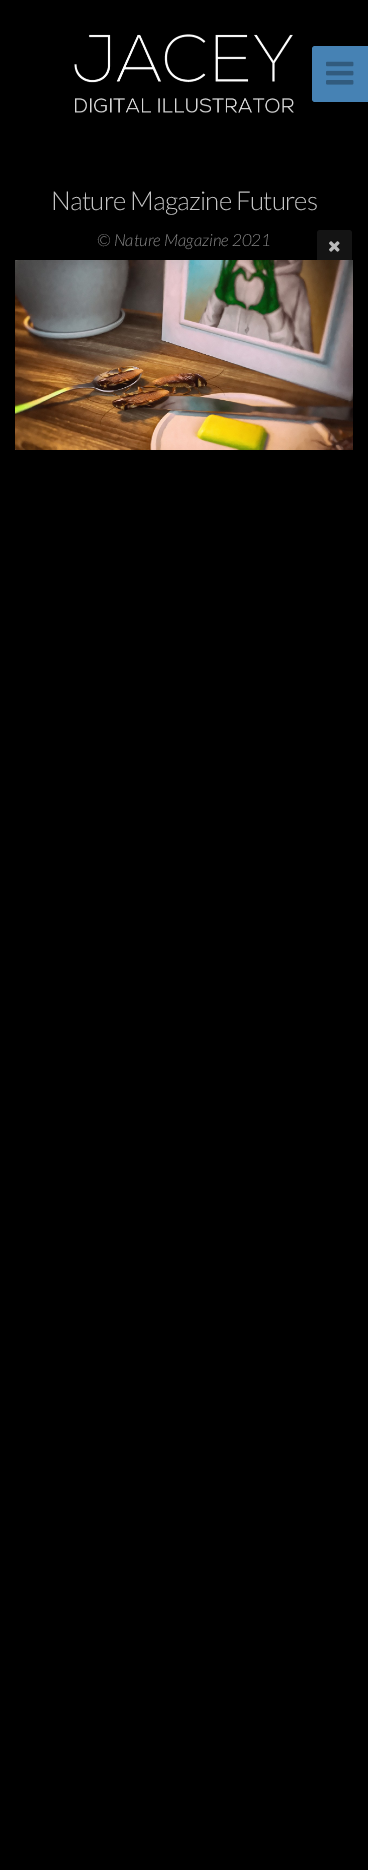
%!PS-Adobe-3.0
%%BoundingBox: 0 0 368 1870
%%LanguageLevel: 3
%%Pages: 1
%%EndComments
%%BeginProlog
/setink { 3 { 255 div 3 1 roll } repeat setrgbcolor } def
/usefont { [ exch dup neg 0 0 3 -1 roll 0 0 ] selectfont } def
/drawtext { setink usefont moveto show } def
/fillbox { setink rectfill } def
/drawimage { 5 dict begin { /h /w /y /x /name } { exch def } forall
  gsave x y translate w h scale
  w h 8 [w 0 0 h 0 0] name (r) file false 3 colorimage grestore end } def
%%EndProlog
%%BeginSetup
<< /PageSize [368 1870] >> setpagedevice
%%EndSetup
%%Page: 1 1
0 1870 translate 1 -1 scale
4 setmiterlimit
0 0 368 1870 0 0 0 fillbox
70 130 180 setink
315 46 moveto 368 46 lineto 368 102 lineto 315 102 lineto 313.5 102 312 100.5 312 99 curveto 312 49 lineto 312 47.5 313.5 46 315 46 curveto closepath fill
(assets/img1.rgb) 326 61 28 24 drawimage
(assets/img2.rgb) 74 34 220 80 drawimage
/Lato-Light 26 usefont
197 197 197 setink
51 210 moveto -0.75 0 (Nature Magazine Futures) ashow
(© Nature Magazine 2021) 97 246 /Lato-LightItalic 16.75 140 140 140 drawtext
20 20 20 setink
320 230 moveto 349 230 lineto 350.5 230 352 231.5 352 233 curveto 352 260 lineto 317 260 lineto 317 233 lineto 317 231.5 318.5 230 320 230 curveto closepath fill
(assets/img3.rgb) 329 241 11 11 drawimage
(assets/img4.rgb) 15 260 338 190 drawimage
showpage
%%EOF
